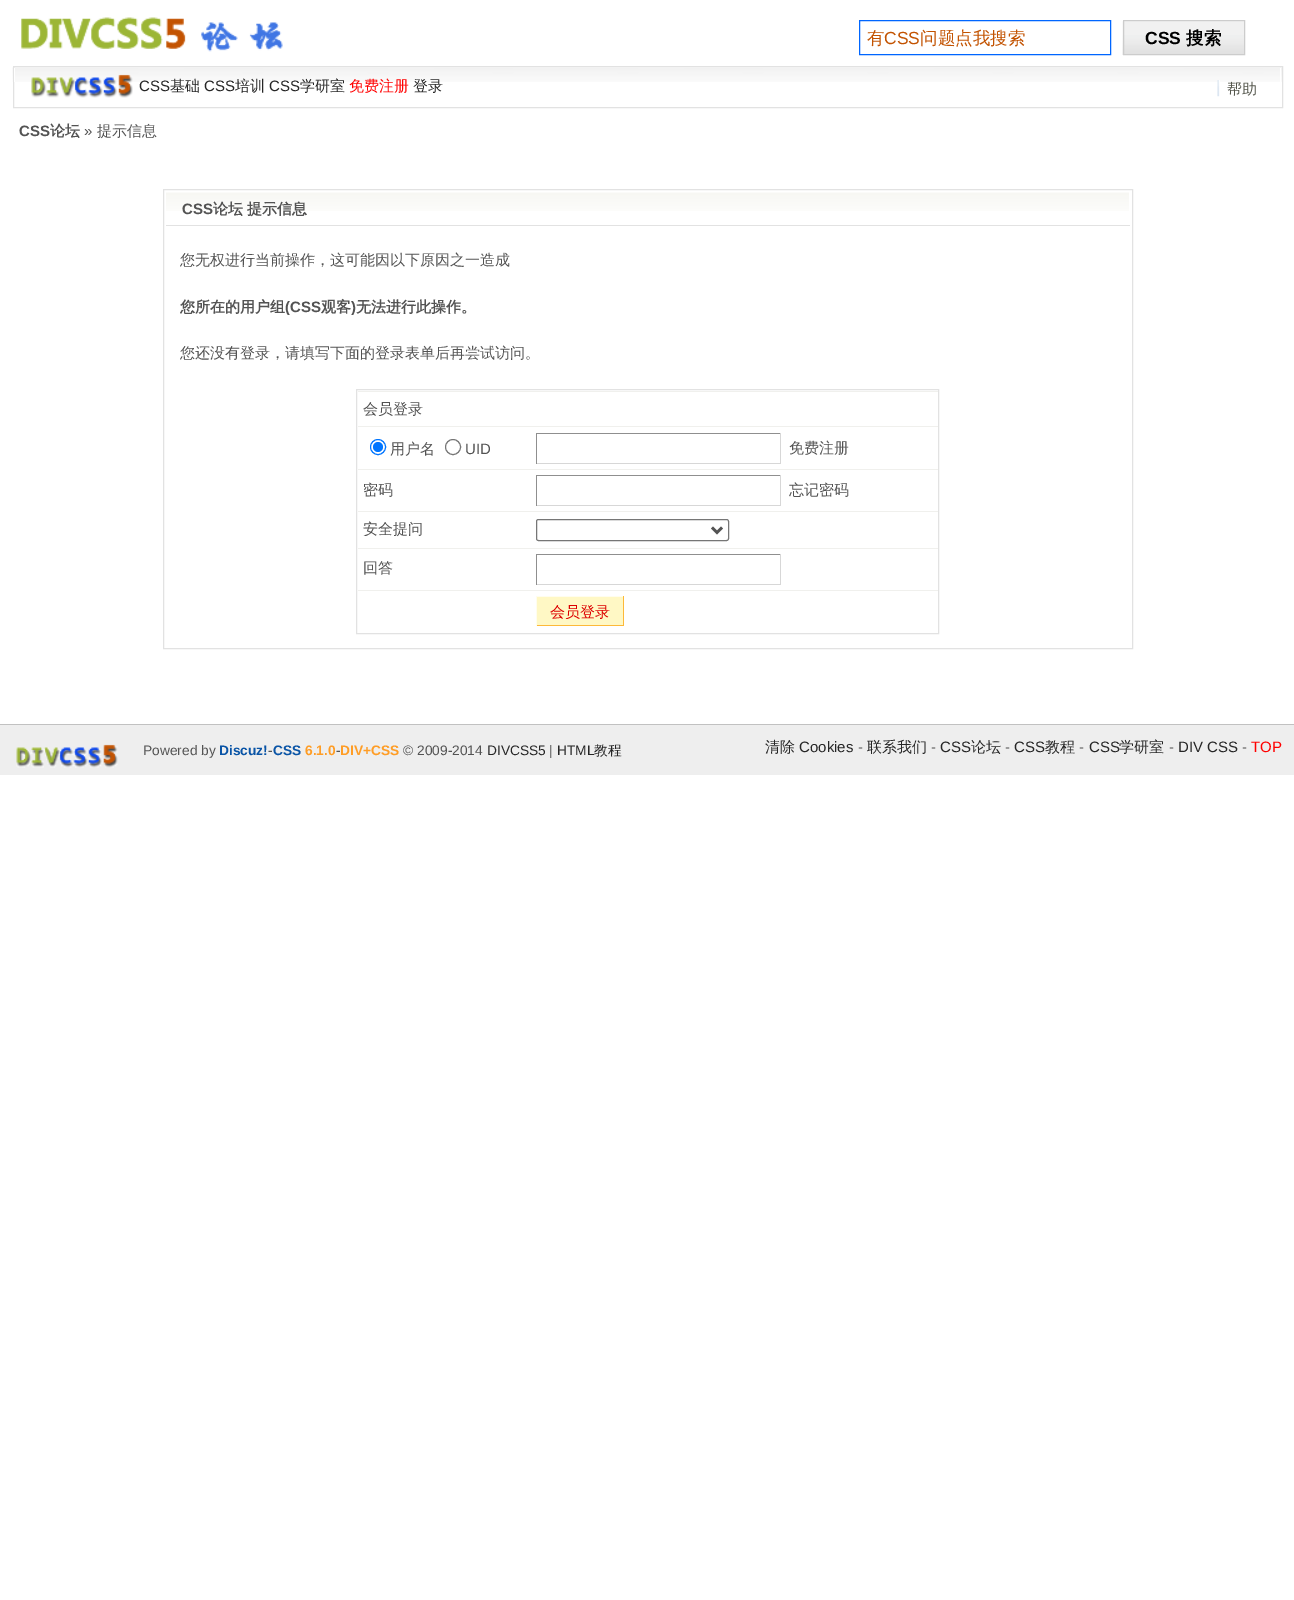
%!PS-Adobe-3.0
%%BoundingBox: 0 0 1294 1600
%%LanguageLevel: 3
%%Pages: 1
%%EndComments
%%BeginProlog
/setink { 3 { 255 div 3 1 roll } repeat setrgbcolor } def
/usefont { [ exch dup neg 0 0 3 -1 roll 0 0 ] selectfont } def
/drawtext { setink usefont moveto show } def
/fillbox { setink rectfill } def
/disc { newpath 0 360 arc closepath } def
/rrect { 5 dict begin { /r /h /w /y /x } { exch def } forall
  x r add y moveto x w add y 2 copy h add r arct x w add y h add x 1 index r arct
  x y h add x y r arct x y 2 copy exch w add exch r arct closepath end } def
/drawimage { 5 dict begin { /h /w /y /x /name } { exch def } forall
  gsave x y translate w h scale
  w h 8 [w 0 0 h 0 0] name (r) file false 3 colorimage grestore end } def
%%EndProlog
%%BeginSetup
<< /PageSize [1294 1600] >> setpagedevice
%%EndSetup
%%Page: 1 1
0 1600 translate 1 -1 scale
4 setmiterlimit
0 0 1294 1600 255 255 255 fillbox
(assets/img1.rgb) 21 17 262 35 drawimage
0 102 255 setink
859.5 20.5 251 34 rectstroke
(有) 867 44 /WenQuanYiZenHei-Medium 17.5 195 83 1 drawtext
(CSS) 884 44 /LiberationSans-Regular 17.5 195 83 1 drawtext
(问题点我搜索) 920 44 /WenQuanYiZenHei-Medium 17.5 195 83 1 drawtext
(assets/img2.rgb) 1122 21 122 34 drawimage
204 204 204 setink
1123.5 20.5 121 34 rectstroke
(CSS) 1145 44 /LiberationSans-Bold 17.5 0 0 0 drawtext
(搜索) 1186 44 /WenQuanYiZenHei-Bold 17.5 0 0 0 drawtext
(assets/img3.rgb) 12 67 1270 15 drawimage
226 226 226 setink
13.5 66.5 1269 41 rectstroke
(assets/img4.rgb) 31 74 102 24 drawimage
14 68 1 14 255 255 255 fillbox
(CSS) 139 91 /LiberationSans-Regular 15 38 38 38 drawtext
(基础) 170 91 /WenQuanYiZenHei-Medium 15 38 38 38 drawtext
(CSS) 204 91 /LiberationSans-Regular 15 38 38 38 drawtext
(培训) 235 91 /WenQuanYiZenHei-Medium 15 38 38 38 drawtext
(CSS) 269 91 /LiberationSans-Regular 15 38 38 38 drawtext
(学研室) 300 91 /WenQuanYiZenHei-Medium 15 38 38 38 drawtext
(免费注册) 349 91 /WenQuanYiZenHei-Medium 15 255 0 0 drawtext
(登录) 413 91 /WenQuanYiZenHei-Medium 15 38 38 38 drawtext
1280 68 1 14 255 255 255 fillbox
(assets/img5.rgb) 1217 80 3 17 drawimage
(帮助) 1227 94 /WenQuanYiZenHei-Medium 15 84 86 76 drawtext
(CSS) 19 136 /LiberationSans-Bold 15 83 83 83 drawtext
(论坛) 50 136 /WenQuanYiZenHei-Bold 15 83 83 83 drawtext
(») 84 136 /LiberationSans-Regular 15 83 83 83 drawtext
(提示信息) 97 136 /WenQuanYiZenHei-Medium 15 83 83 83 drawtext
226 226 226 setink
163.5 189.5 969 459 rectstroke
(assets/img6.rgb) 166 192 963 19 drawimage
165 225 965 1 226 226 226 fillbox
165 225 1 1 255 255 255 fillbox
(CSS) 182 214 /LiberationSans-Bold 15 83 83 83 drawtext
(论坛 提示信息) 213 214 /WenQuanYiZenHei-Bold 15 83 83 83 drawtext
(您无权进行当前操作，这可能因以下原因之一造成) 180 265 /WenQuanYiZenHei-Medium 15 83 83 83 drawtext
(您所在的用户组) 180 312 /WenQuanYiZenHei-Bold 15 83 83 83 drawtext
(\(CSS) 285 312 /LiberationSans-Bold 15 83 83 83 drawtext
(观客) 321 312 /WenQuanYiZenHei-Bold 15 83 83 83 drawtext
(\)) 351 312 /LiberationSans-Bold 15 83 83 83 drawtext
(无法进行此操作。) 356 312 /WenQuanYiZenHei-Bold 15 83 83 83 drawtext
(您还没有登录，请填写下面的登录表单后再尝试访问。) 180 358 /WenQuanYiZenHei-Medium 15 83 83 83 drawtext
226 226 226 setink
356.5 389.5 582 244 rectstroke
358 391 580 1 240 240 237 fillbox
(会员登录) 363 414 /WenQuanYiZenHei-Medium 15 83 83 83 drawtext
0 117 255 setink
378 447 7.5 disc stroke
378 447 5 disc fill
(用户名) 390 454 /WenQuanYiZenHei-Medium 15 83 83 83 drawtext
118 118 118 setink
453 447 7.5 disc stroke
(UID) 465 454 /LiberationSans-Regular 15 83 83 83 drawtext
358 426 580 1 240 240 237 fillbox
536 433 245 1 143 143 143 fillbox
780 433 1 31 215 215 215 fillbox
536 463 245 1 215 215 215 fillbox
536 433 1 31 143 143 143 fillbox
(免费注册) 789 453 /WenQuanYiZenHei-Medium 15 83 83 83 drawtext
(密码) 363 495 /WenQuanYiZenHei-Medium 15 83 83 83 drawtext
358 469 580 1 240 240 237 fillbox
536 475 245 1 143 143 143 fillbox
780 475 1 31 215 215 215 fillbox
536 505 245 1 215 215 215 fillbox
536 475 1 31 143 143 143 fillbox
(忘记密码) 789 495 /WenQuanYiZenHei-Medium 15 83 83 83 drawtext
358 511 580 1 240 240 237 fillbox
118 118 118 setink
536.5 519.5 192 21 2 rrect stroke
83 83 83 setink
2.5 setlinewidth
712 527.5 moveto 717 532.5 lineto 722 527.5 lineto stroke
(安全提问) 363 534 /WenQuanYiZenHei-Medium 15 83 83 83 drawtext
358 548 580 1 240 240 237 fillbox
536 554 245 1 143 143 143 fillbox
780 554 1 31 215 215 215 fillbox
536 584 245 1 215 215 215 fillbox
536 554 1 31 143 143 143 fillbox
(回答) 363 573 /WenQuanYiZenHei-Medium 15 83 83 83 drawtext
358 590 580 1 240 240 237 fillbox
537 597 86 28 255 248 197 fillbox
536 596 88 1 255 253 238 fillbox
623 596 1 30 253 185 57 fillbox
536 625 88 1 253 185 57 fillbox
536 596 1 30 255 253 238 fillbox
(会员登录) 550 617 /WenQuanYiZenHei-Medium 15 221 0 0 drawtext
0 725 1294 50 238 238 238 fillbox
0 724 1294 1 193 193 193 fillbox
(assets/img7.rgb) 16 744 102 24 drawimage
(Powered by) 143 755 /LiberationSans-Regular 13.75 83 83 83 drawtext
(Discuz!) 219 755 /LiberationSans-Bold 13.75 9 84 166 drawtext
(-) 268 755 /LiberationSans-Regular 13.75 83 83 83 drawtext
(CSS) 273 755 /LiberationSans-Bold 13.75 9 84 166 drawtext
(6.1.0) 305 755 /LiberationSans-Bold 13.75 255 157 37 drawtext
(-) 336 755 /LiberationSans-Regular 13.75 83 83 83 drawtext
(DIV+CSS) 340 755 /LiberationSans-Bold 13.75 255 157 37 drawtext
(© 2009-2014) 403 755 /LiberationSans-Regular 13.75 83 83 83 drawtext
(DIVCSS5) 487 755 /LiberationSans-Regular 13.75 38 38 38 drawtext
(|) 549 755 /LiberationSans-Regular 13.75 83 83 83 drawtext
(HTML) 557 755 /LiberationSans-Regular 13.75 38 38 38 drawtext
(教程) 594 755 /WenQuanYiZenHei-Medium 13.75 38 38 38 drawtext
(清除) 765 752 /WenQuanYiZenHei-Medium 15 38 38 38 drawtext
(Cookies) 799 752 /LiberationSans-Regular 15 38 38 38 drawtext
(-) 858 752 /LiberationSans-Regular 15 83 83 83 drawtext
(联系我们) 867 752 /WenQuanYiZenHei-Medium 15 38 38 38 drawtext
(-) 931 752 /LiberationSans-Regular 15 83 83 83 drawtext
(CSS) 940 752 /LiberationSans-Regular 15 38 38 38 drawtext
(论坛) 971 752 /WenQuanYiZenHei-Medium 15 38 38 38 drawtext
(-) 1005 752 /LiberationSans-Regular 15 83 83 83 drawtext
(CSS) 1014 752 /LiberationSans-Regular 15 38 38 38 drawtext
(教程) 1045 752 /WenQuanYiZenHei-Medium 15 38 38 38 drawtext
(-) 1079 752 /LiberationSans-Regular 15 83 83 83 drawtext
(CSS) 1089 752 /LiberationSans-Regular 15 38 38 38 drawtext
(学研室) 1119 752 /WenQuanYiZenHei-Medium 15 38 38 38 drawtext
(-) 1169 752 /LiberationSans-Regular 15 83 83 83 drawtext
(DIV CSS) 1178 752 /LiberationSans-Regular 15 38 38 38 drawtext
(-) 1242 752 /LiberationSans-Regular 15 83 83 83 drawtext
(TOP) 1251 752 /LiberationSans-Regular 15 255 0 0 drawtext
showpage
%%EOF
